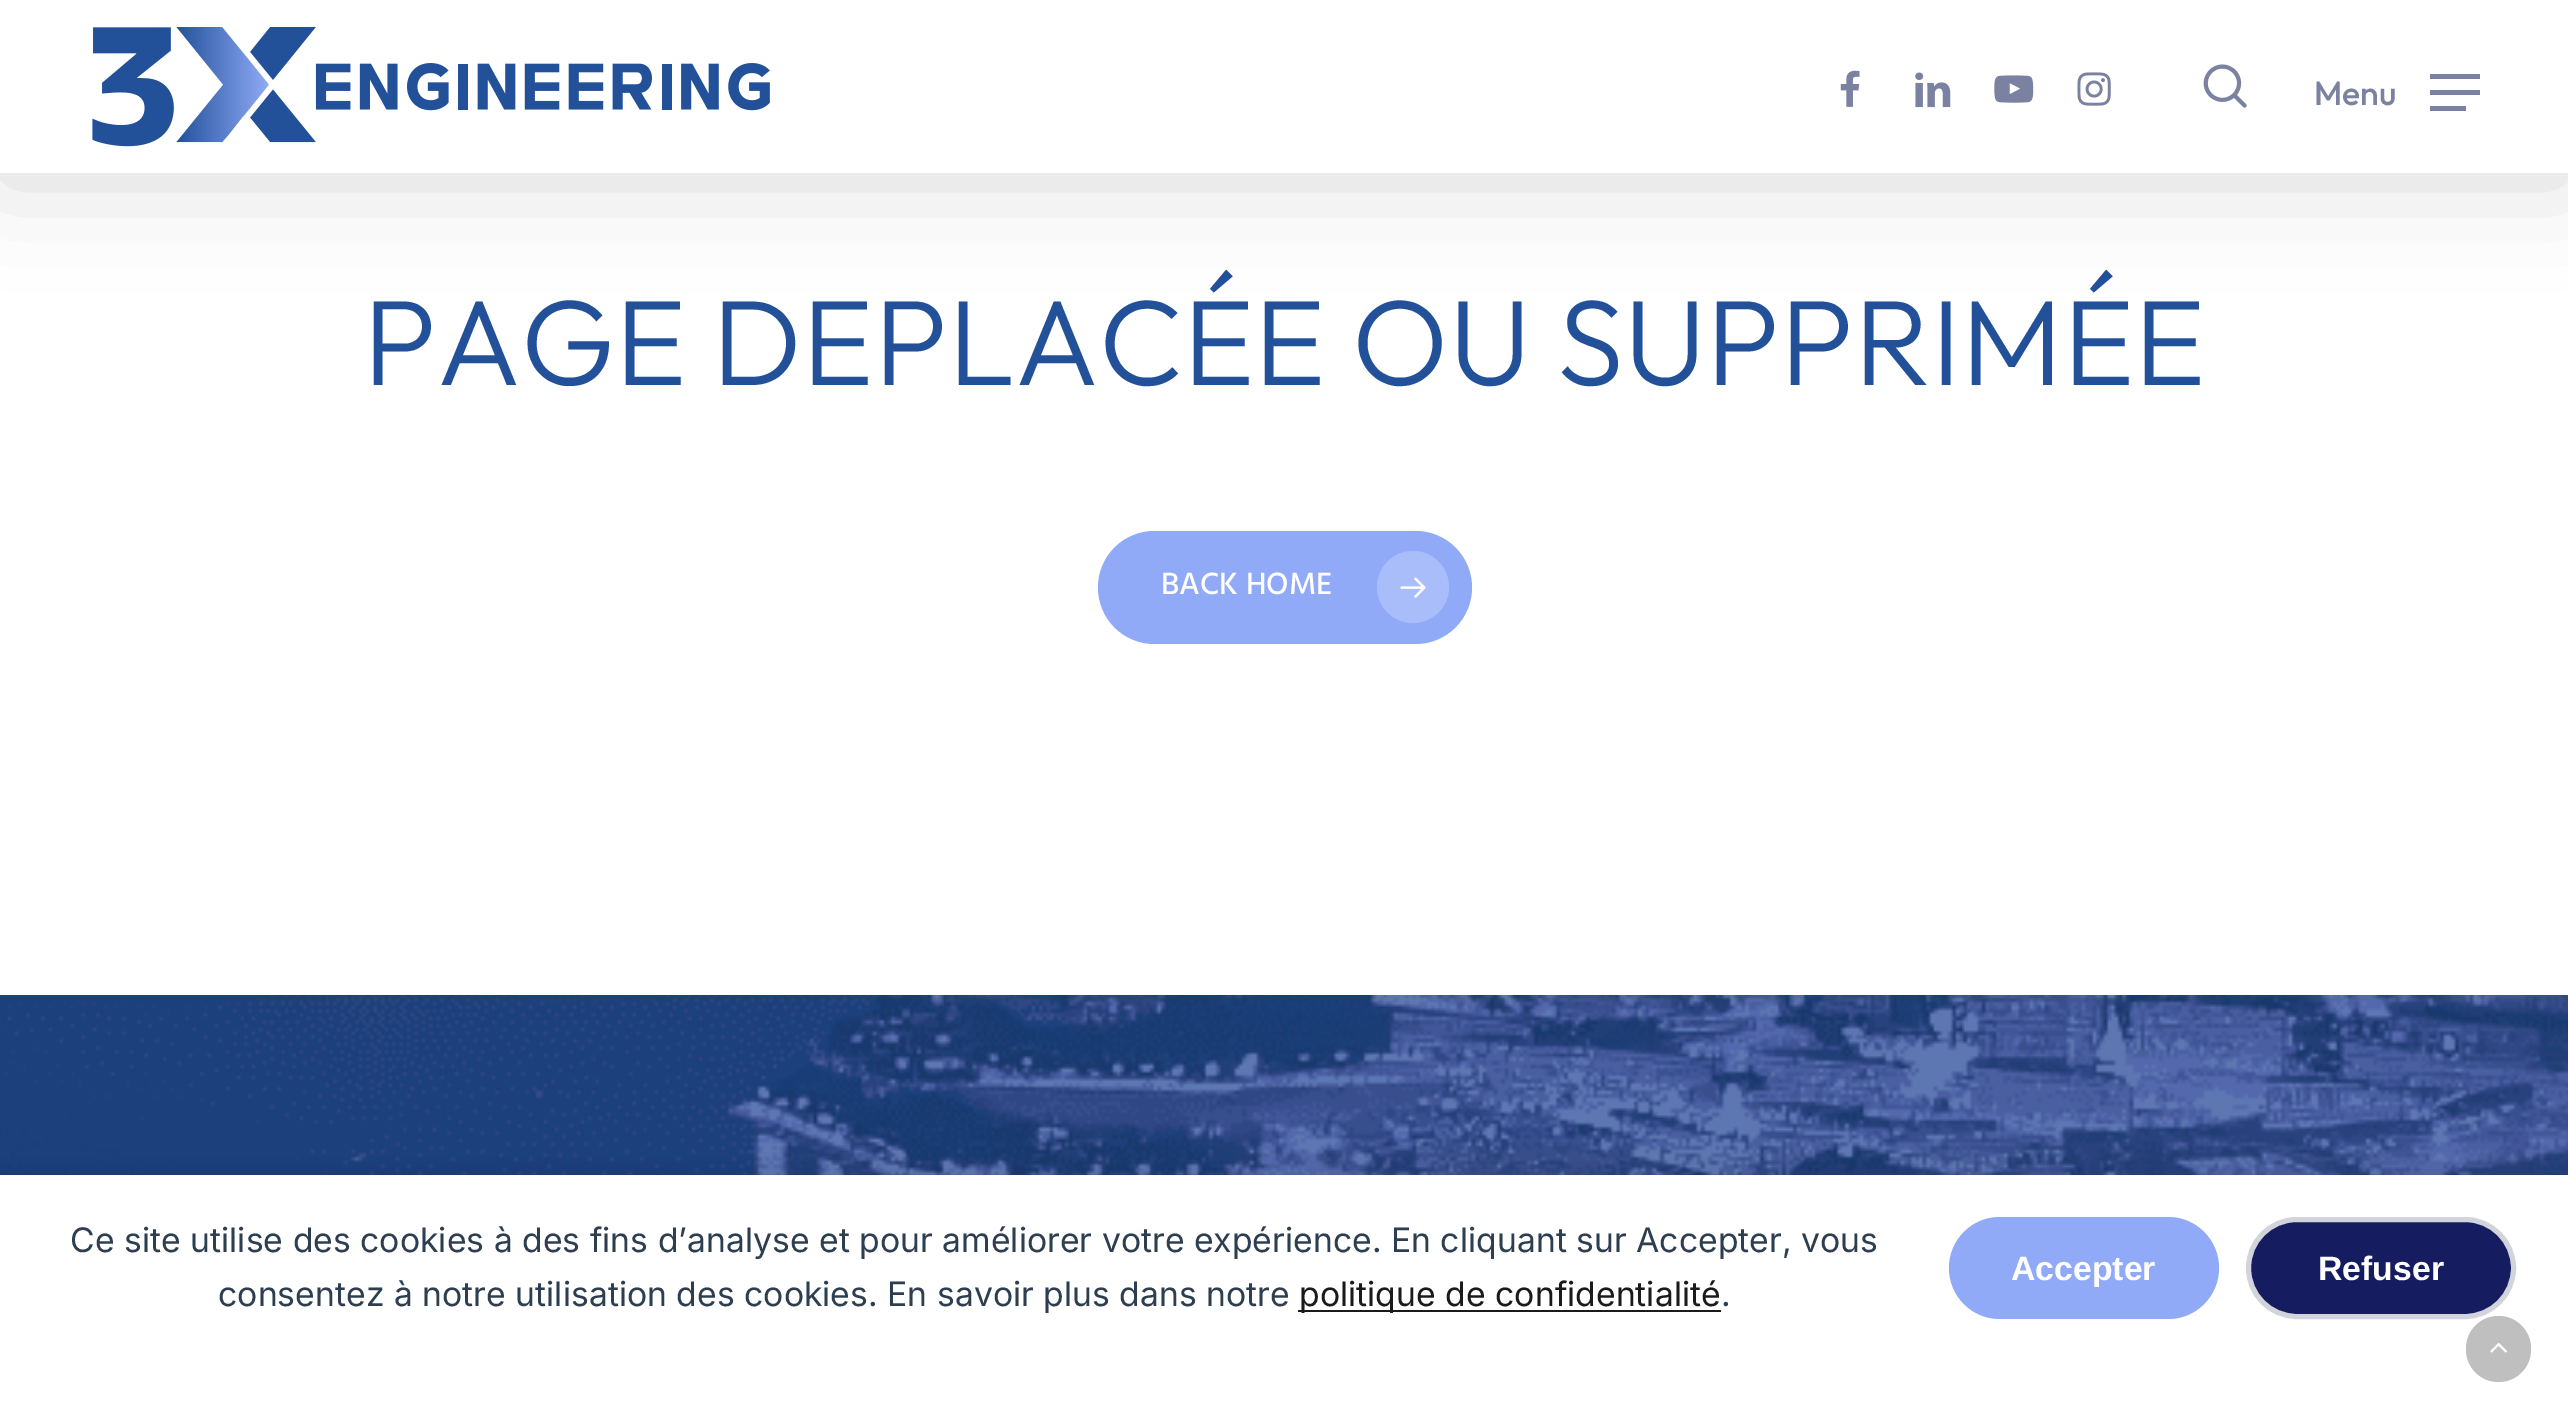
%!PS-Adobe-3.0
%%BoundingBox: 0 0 2568 1412
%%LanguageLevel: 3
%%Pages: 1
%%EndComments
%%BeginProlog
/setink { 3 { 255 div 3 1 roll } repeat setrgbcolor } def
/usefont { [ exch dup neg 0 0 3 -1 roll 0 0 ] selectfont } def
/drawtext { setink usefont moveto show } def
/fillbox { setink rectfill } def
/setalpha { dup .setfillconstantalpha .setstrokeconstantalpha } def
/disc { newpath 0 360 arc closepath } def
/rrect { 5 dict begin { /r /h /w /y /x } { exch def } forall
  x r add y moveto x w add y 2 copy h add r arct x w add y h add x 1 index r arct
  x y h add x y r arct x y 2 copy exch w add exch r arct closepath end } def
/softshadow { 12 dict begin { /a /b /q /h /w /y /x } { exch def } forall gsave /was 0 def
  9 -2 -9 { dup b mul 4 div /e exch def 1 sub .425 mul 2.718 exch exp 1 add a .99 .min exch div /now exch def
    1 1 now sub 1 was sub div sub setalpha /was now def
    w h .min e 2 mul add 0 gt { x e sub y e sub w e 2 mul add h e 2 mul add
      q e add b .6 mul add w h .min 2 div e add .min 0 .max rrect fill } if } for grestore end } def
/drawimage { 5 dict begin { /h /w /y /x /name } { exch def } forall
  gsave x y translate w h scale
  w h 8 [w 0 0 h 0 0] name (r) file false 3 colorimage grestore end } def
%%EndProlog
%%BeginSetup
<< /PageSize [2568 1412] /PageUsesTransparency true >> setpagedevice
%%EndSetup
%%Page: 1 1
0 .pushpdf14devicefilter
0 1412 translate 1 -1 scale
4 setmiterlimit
0 0 2568 1412 255 255 255 fillbox
0 0 0 setink
0 7 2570 173 0 50.5 0.15 softshadow
0 0 2568 173 255 255 255 fillbox
(assets/img1.rgb) 92 27 678 120 drawimage
(assets/img2.rgb) 1840 70 20 37 drawimage
(assets/img3.rgb) 1915 72 36 36 drawimage
(assets/img4.rgb) 1994 75 40 28 drawimage
(assets/img5.rgb) 2077 72 34 34 drawimage
(assets/img6.rgb) 2203 64 44 44 drawimage
(Menu) 2314 105 /Outfit-Medium 33.75 123 129 160 drawtext
2430 74 50 5 123 129 160 fillbox
2430 106 36 5 123 129 160 fillbox
2430 90 50 5 123 129 160 fillbox
(PAGE DEPLACÉE OU SUPPRIMÉE) 363 385 /Outfit-Light 121.5 34 81 154 drawtext
144 170 247 setink
1098 531 374 113 56.5 rrect fill
(BACK HOME) 1161 594 /Hind-Medium 31.5 255 255 255 drawtext
168 189 249 setink
1413 587 36 disc fill
(assets/img7.rgb) 1400 577 26 21 drawimage
(assets/img8.rgb) 0 995 2568 180 drawimage
0 0 0 setink
0 1170 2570 239 0 11 0.08 softshadow
0 1175 2568 237 255 255 255 fillbox
21 28 96 setink
2248.5 1219.5 265 97 48.5 rrect gsave fill grestore
209 213 219 setink
5 setlinewidth
stroke
191 191 191 setink
2466 1316 65 66 32.5 rrect fill
(assets/img9.rgb) 2490 1342 17 11 drawimage
(Ce site utilise des cookies à des fins d’analyse et pour améliorer votre expérience. En cliquant sur Accepter, vous) 70 1252 /Inter-Regular 33.75 44 62 80 drawtext
(consentez à notre utilisation des cookies. En savoir plus dans notre) 218 1306 /Inter-Regular 33.75 44 62 80 drawtext
1298 1310 423 2 26 26 26 fillbox
(politique de confidentialité) 1299 1306 /Inter-Regular 33.75 26 26 26 drawtext
(.) 1721 1306 /Inter-Regular 33.75 44 62 80 drawtext
144 170 247 setink
1949 1217 270 102 51 rrect fill
(Accepter) 2011 1280 /LiberationSans-Bold 33.75 255 255 255 drawtext
(Refuser) 2318 1280 /LiberationSans-Bold 33.75 255 255 255 drawtext
.poppdf14devicefilter showpage
%%EOF
